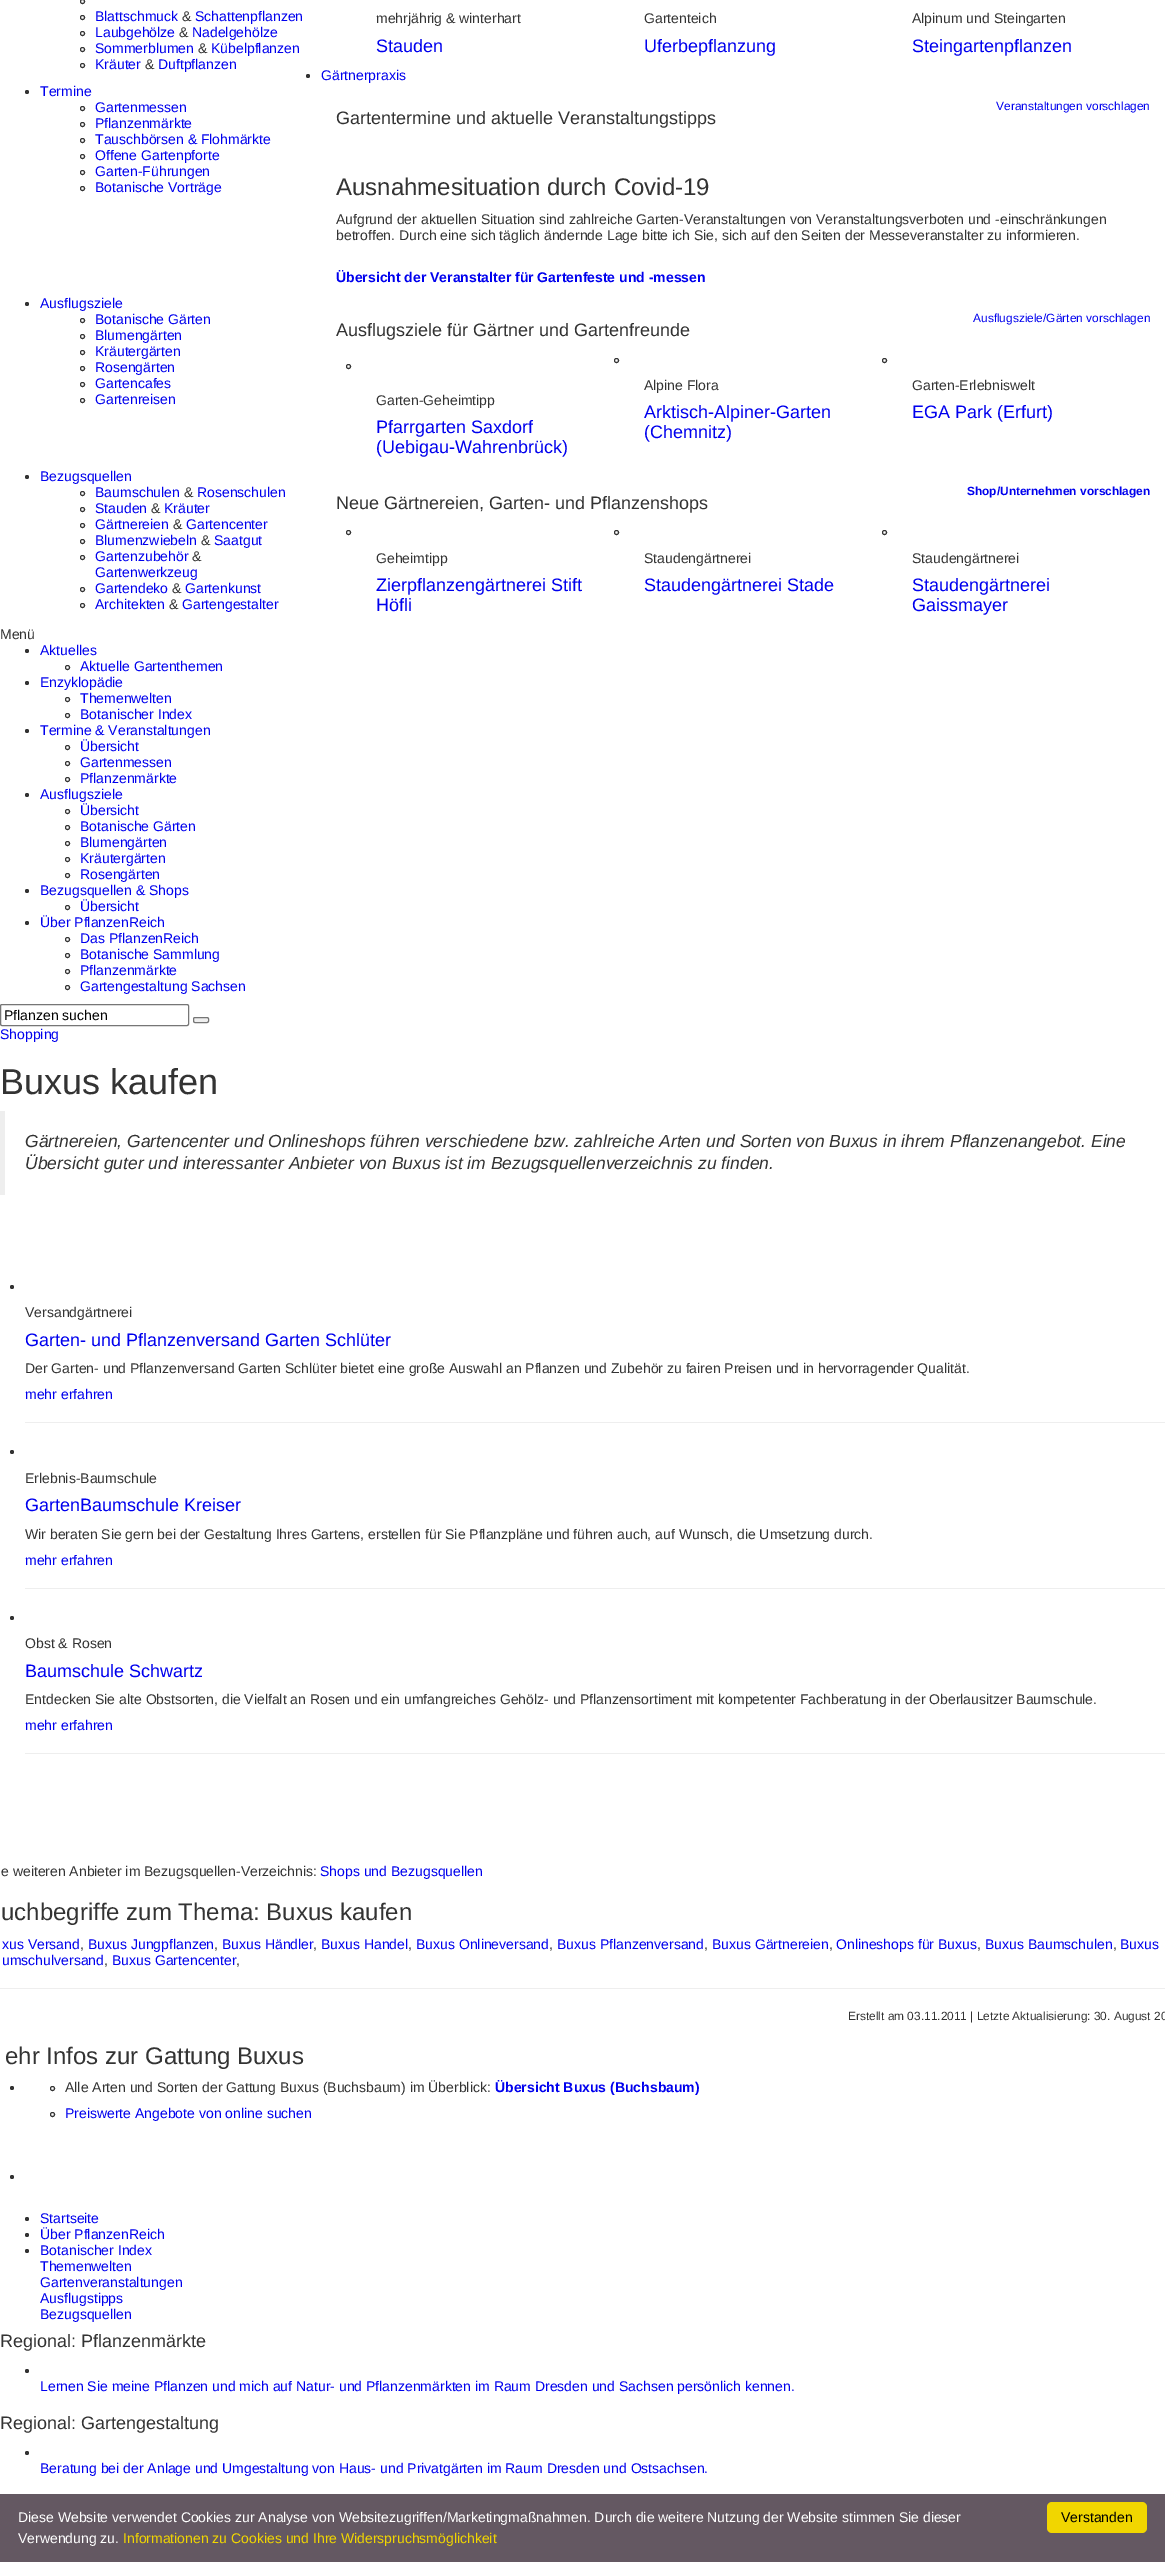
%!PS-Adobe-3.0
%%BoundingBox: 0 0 1165 2562
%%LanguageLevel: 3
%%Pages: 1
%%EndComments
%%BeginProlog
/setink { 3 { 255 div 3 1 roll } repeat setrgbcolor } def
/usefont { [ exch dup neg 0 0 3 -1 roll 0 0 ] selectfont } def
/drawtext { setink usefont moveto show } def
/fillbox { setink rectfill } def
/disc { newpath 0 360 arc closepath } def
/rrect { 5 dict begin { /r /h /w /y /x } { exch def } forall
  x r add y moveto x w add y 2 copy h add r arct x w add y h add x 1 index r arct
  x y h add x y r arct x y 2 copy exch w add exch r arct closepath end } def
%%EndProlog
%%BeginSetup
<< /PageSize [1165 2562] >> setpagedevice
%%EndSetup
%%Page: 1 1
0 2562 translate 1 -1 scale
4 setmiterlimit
0 0 1165 2562 255 255 255 fillbox
51 51 51 setink
82.5 1.5 2 disc stroke
82.5 17.5 2 disc stroke
(Blattschmuck) 95 21 /LiberationSans-Regular 14 0 0 238 drawtext
(&) 182 21 /LiberationSans-Regular 14 51 51 51 drawtext
(Schattenpflanzen) 195 21 /LiberationSans-Regular 14 0 0 238 drawtext
51 51 51 setink
82.5 33.5 2 disc stroke
(Laubgehölze) 95 37 /LiberationSans-Regular 14 0 0 238 drawtext
(&) 179 37 /LiberationSans-Regular 14 51 51 51 drawtext
(Nadelgehölze) 192 37 /LiberationSans-Regular 14 0 0 238 drawtext
51 51 51 setink
82.5 49.5 2 disc stroke
(Sommerblumen) 95 53 /LiberationSans-Regular 14 0 0 238 drawtext
(&) 198 53 /LiberationSans-Regular 14 51 51 51 drawtext
(Kübelpflanzen) 211 53 /LiberationSans-Regular 14 0 0 238 drawtext
51 51 51 setink
82.5 65.5 2 disc stroke
(Kräuter) 95 69 /LiberationSans-Regular 14 0 0 238 drawtext
(&) 145 69 /LiberationSans-Regular 14 51 51 51 drawtext
(Duftpflanzen) 158 69 /LiberationSans-Regular 14 0 0 238 drawtext
(mehrjährig & winterhart) 376 23 /LiberationSans-Regular 14 51 51 51 drawtext
(Stauden) 376 52 /LiberationSans-Regular 18 0 0 238 drawtext
(Gartenteich) 644 23 /LiberationSans-Regular 14 51 51 51 drawtext
(Uferbepflanzung) 644 52 /LiberationSans-Regular 18 0 0 238 drawtext
(Alpinum und Steingarten) 912 23 /LiberationSans-Regular 14 51 51 51 drawtext
(Steingartenpflanzen) 912 52 /LiberationSans-Regular 18 0 0 238 drawtext
51 51 51 setink
308 76 2 disc fill
(Gärtnerpraxis) 321 80 /LiberationSans-Regular 14 0 0 238 drawtext
51 51 51 setink
27 92 2 disc fill
(Termine) 40 96 /LiberationSans-Regular 14 0 0 238 drawtext
51 51 51 setink
82.5 108.5 2 disc stroke
(Gartenmessen) 95 112 /LiberationSans-Regular 14 0 0 238 drawtext
51 51 51 setink
82.5 124.5 2 disc stroke
(Pflanzenmärkte) 95 128 /LiberationSans-Regular 14 0 0 238 drawtext
51 51 51 setink
82.5 140.5 2 disc stroke
(Tauschbörsen & Flohmärkte) 95 144 /LiberationSans-Regular 14 0 0 238 drawtext
51 51 51 setink
82.5 156.5 2 disc stroke
(Offene Gartenpforte) 95 160 /LiberationSans-Regular 14 0 0 238 drawtext
51 51 51 setink
82.5 172.5 2 disc stroke
(Garten-Führungen) 95 176 /LiberationSans-Regular 14 0 0 238 drawtext
51 51 51 setink
82.5 188.5 2 disc stroke
(Botanische Vorträge) 95 192 /LiberationSans-Regular 14 0 0 238 drawtext
(Veranstaltungen vorschlagen) 996 110 /LiberationSans-Regular 11.9 0 0 238 drawtext
(Gartentermine und aktuelle Veranstaltungstipps) 336 124 /LiberationSans-Regular 18 51 51 51 drawtext
(Ausnahmesituation durch Covid-19) 336 195 /LiberationSans-Regular 24 51 51 51 drawtext
(Aufgrund der aktuellen Situation sind zahlreiche Garten-Veranstaltungen von Veranstaltungsverboten und -einschränkungen) 336 224 /LiberationSans-Regular 14 51 51 51 drawtext
(betroffen. Durch eine sich täglich ändernde Lage bitte ich Sie, sich auf den Seiten der Messeveranstalter zu informieren.) 336 240 /LiberationSans-Regular 14 51 51 51 drawtext
(Übersicht der Veranstalter für Gartenfeste und -messen) 336 282 /LiberationSans-Bold 14 0 0 238 drawtext
51 51 51 setink
27 304 2 disc fill
(Ausflugsziele) 40 308 /LiberationSans-Regular 14 0 0 238 drawtext
51 51 51 setink
82.5 320.5 2 disc stroke
(Botanische Gärten) 95 324 /LiberationSans-Regular 14 0 0 238 drawtext
51 51 51 setink
82.5 336.5 2 disc stroke
(Blumengärten) 95 340 /LiberationSans-Regular 14 0 0 238 drawtext
51 51 51 setink
82.5 352.5 2 disc stroke
(Kräutergärten) 95 356 /LiberationSans-Regular 14 0 0 238 drawtext
51 51 51 setink
82.5 368.5 2 disc stroke
(Rosengärten) 95 372 /LiberationSans-Regular 14 0 0 238 drawtext
51 51 51 setink
82.5 384.5 2 disc stroke
(Gartencafes) 95 388 /LiberationSans-Regular 14 0 0 238 drawtext
51 51 51 setink
82.5 400.5 2 disc stroke
(Gartenreisen) 95 404 /LiberationSans-Regular 14 0 0 238 drawtext
(Ausflugsziele/Gärten vorschlagen) 973 322 /LiberationSans-Regular 11.9 0 0 238 drawtext
(Ausflugsziele für Gärtner und Gartenfreunde) 336 336 /LiberationSans-Regular 18 51 51 51 drawtext
348.5 366.5 2 disc stroke
(Garten-Geheimtipp) 376 405 /LiberationSans-Regular 14 51 51 51 drawtext
(Pfarrgarten Saxdorf) 376 433 /LiberationSans-Regular 18 0 0 238 drawtext
(\(Uebigau-Wahrenbrück\)) 376 453 /LiberationSans-Regular 18 0 0 238 drawtext
51 51 51 setink
616.5 360.5 2 disc stroke
(Alpine Flora) 644 390 /LiberationSans-Regular 14 51 51 51 drawtext
(Arktisch-Alpiner-Garten) 644 418 /LiberationSans-Regular 18 0 0 238 drawtext
(\(Chemnitz\)) 644 438 /LiberationSans-Regular 18 0 0 238 drawtext
51 51 51 setink
884.5 360.5 2 disc stroke
(Garten-Erlebniswelt) 912 390 /LiberationSans-Regular 14 51 51 51 drawtext
(EGA Park \(Erfurt\)) 912 418 /LiberationSans-Regular 18 0 0 238 drawtext
51 51 51 setink
27 477 2 disc fill
(Bezugsquellen) 40 481 /LiberationSans-Regular 14 0 0 238 drawtext
51 51 51 setink
82.5 493.5 2 disc stroke
(Baumschulen) 95 497 /LiberationSans-Regular 14 0 0 238 drawtext
(&) 184 497 /LiberationSans-Regular 14 51 51 51 drawtext
(Rosenschulen) 197 497 /LiberationSans-Regular 14 0 0 238 drawtext
51 51 51 setink
82.5 509.5 2 disc stroke
(Stauden) 95 513 /LiberationSans-Regular 14 0 0 238 drawtext
(&) 151 513 /LiberationSans-Regular 14 51 51 51 drawtext
(Kräuter) 164 513 /LiberationSans-Regular 14 0 0 238 drawtext
51 51 51 setink
82.5 525.5 2 disc stroke
(Gärtnereien) 95 529 /LiberationSans-Regular 14 0 0 238 drawtext
(&) 173 529 /LiberationSans-Regular 14 51 51 51 drawtext
(Gartencenter) 186 529 /LiberationSans-Regular 14 0 0 238 drawtext
51 51 51 setink
82.5 541.5 2 disc stroke
(Blumenzwiebeln) 95 545 /LiberationSans-Regular 14 0 0 238 drawtext
(&) 201 545 /LiberationSans-Regular 14 51 51 51 drawtext
(Saatgut) 214 545 /LiberationSans-Regular 14 0 0 238 drawtext
51 51 51 setink
82.5 557.5 2 disc stroke
(Gartenzubehör) 95 561 /LiberationSans-Regular 14 0 0 238 drawtext
(&) 192 561 /LiberationSans-Regular 14 51 51 51 drawtext
(Gartenwerkzeug) 95 577 /LiberationSans-Regular 14 0 0 238 drawtext
51 51 51 setink
82.5 589.5 2 disc stroke
(Gartendeko) 95 593 /LiberationSans-Regular 14 0 0 238 drawtext
(&) 172 593 /LiberationSans-Regular 14 51 51 51 drawtext
(Gartenkunst) 185 593 /LiberationSans-Regular 14 0 0 238 drawtext
51 51 51 setink
82.5 605.5 2 disc stroke
(Architekten) 95 609 /LiberationSans-Regular 14 0 0 238 drawtext
(&) 169 609 /LiberationSans-Regular 14 51 51 51 drawtext
(Gartengestalter) 182 609 /LiberationSans-Regular 14 0 0 238 drawtext
(Shop/Unternehmen vorschlagen) 967 495 /LiberationSans-Bold 11.9 0 0 238 drawtext
(Neue Gärtnereien, Garten- und Pflanzenshops) 336 509 /LiberationSans-Regular 18 51 51 51 drawtext
348.5 532.5 2 disc stroke
(Geheimtipp) 376 563 /LiberationSans-Regular 14 51 51 51 drawtext
(Zierpflanzengärtnerei Stift) 376 591 /LiberationSans-Regular 18 0 0 238 drawtext
(Höfli) 376 611 /LiberationSans-Regular 18 0 0 238 drawtext
51 51 51 setink
616.5 532.5 2 disc stroke
(Staudengärtnerei) 644 563 /LiberationSans-Regular 14 51 51 51 drawtext
(Staudengärtnerei Stade) 644 591 /LiberationSans-Regular 18 0 0 238 drawtext
51 51 51 setink
884.5 532.5 2 disc stroke
(Staudengärtnerei) 912 563 /LiberationSans-Regular 14 51 51 51 drawtext
(Staudengärtnerei) 912 591 /LiberationSans-Regular 18 0 0 238 drawtext
(Gaissmayer) 912 611 /LiberationSans-Regular 18 0 0 238 drawtext
(Menü) 0 639 /LiberationSans-Regular 14 51 51 51 drawtext
27 651 2 disc fill
(Aktuelles) 40 655 /LiberationSans-Regular 14 0 0 238 drawtext
51 51 51 setink
67.5 667.5 2 disc stroke
(Aktuelle Gartenthemen) 80 671 /LiberationSans-Regular 14 0 0 238 drawtext
51 51 51 setink
27 683 2 disc fill
(Enzyklopädie) 40 687 /LiberationSans-Regular 14 0 0 238 drawtext
51 51 51 setink
67.5 699.5 2 disc stroke
(Themenwelten) 80 703 /LiberationSans-Regular 14 0 0 238 drawtext
51 51 51 setink
67.5 715.5 2 disc stroke
(Botanischer Index) 80 719 /LiberationSans-Regular 14 0 0 238 drawtext
51 51 51 setink
27 731 2 disc fill
(Termine & Veranstaltungen) 40 735 /LiberationSans-Regular 14 0 0 238 drawtext
51 51 51 setink
67.5 747.5 2 disc stroke
(Übersicht) 80 751 /LiberationSans-Regular 14 0 0 238 drawtext
51 51 51 setink
67.5 763.5 2 disc stroke
(Gartenmessen) 80 767 /LiberationSans-Regular 14 0 0 238 drawtext
51 51 51 setink
67.5 779.5 2 disc stroke
(Pflanzenmärkte) 80 783 /LiberationSans-Regular 14 0 0 238 drawtext
51 51 51 setink
27 795 2 disc fill
(Ausflugsziele) 40 799 /LiberationSans-Regular 14 0 0 238 drawtext
51 51 51 setink
67.5 811.5 2 disc stroke
(Übersicht) 80 815 /LiberationSans-Regular 14 0 0 238 drawtext
51 51 51 setink
67.5 827.5 2 disc stroke
(Botanische Gärten) 80 831 /LiberationSans-Regular 14 0 0 238 drawtext
51 51 51 setink
67.5 843.5 2 disc stroke
(Blumengärten) 80 847 /LiberationSans-Regular 14 0 0 238 drawtext
51 51 51 setink
67.5 859.5 2 disc stroke
(Kräutergärten) 80 863 /LiberationSans-Regular 14 0 0 238 drawtext
51 51 51 setink
67.5 875.5 2 disc stroke
(Rosengärten) 80 879 /LiberationSans-Regular 14 0 0 238 drawtext
51 51 51 setink
27 891 2 disc fill
(Bezugsquellen & Shops) 40 895 /LiberationSans-Regular 14 0 0 238 drawtext
51 51 51 setink
67.5 907.5 2 disc stroke
(Übersicht) 80 911 /LiberationSans-Regular 14 0 0 238 drawtext
51 51 51 setink
27 923 2 disc fill
(Über PflanzenReich) 40 927 /LiberationSans-Regular 14 0 0 238 drawtext
51 51 51 setink
67.5 939.5 2 disc stroke
(Das PflanzenReich) 80 943 /LiberationSans-Regular 14 0 0 238 drawtext
51 51 51 setink
67.5 955.5 2 disc stroke
(Botanische Sammlung) 80 959 /LiberationSans-Regular 14 0 0 238 drawtext
51 51 51 setink
67.5 971.5 2 disc stroke
(Pflanzenmärkte) 80 975 /LiberationSans-Regular 14 0 0 238 drawtext
51 51 51 setink
67.5 987.5 2 disc stroke
(Gartengestaltung Sachsen) 80 991 /LiberationSans-Regular 14 0 0 238 drawtext
118 118 118 setink
0.5 1004.5 188 21 1.5 rrect stroke
(Pflanzen suchen) 4 1020 /LiberationSans-Regular 14 0 0 0 drawtext
239 239 239 setink
193.5 1017.5 15 5 1.5 rrect gsave fill grestore
118 118 118 setink
stroke
(Shopping) 0 1039 /LiberationSans-Regular 14 0 0 238 drawtext
(Buxus kaufen) 0 1094 /LiberationSans-Regular 36 51 51 51 drawtext
0 1111 5 84 238 238 238 fillbox
(Gärtnereien, Gartencenter und Onlineshops führen verschiedene bzw. zahlreiche Arten und Sorten von Buxus in ihrem Pflanzenangebot. Eine) 25 1147 /LiberationSans-Italic 17.5 51 51 51 drawtext
(Übersicht guter und interessanter Anbieter von Buxus ist im Bezugsquellenverzeichnis zu finden.) 25 1169 /LiberationSans-Italic 17.5 51 51 51 drawtext
12 1287 2 disc fill
(Versandgärtnerei) 25 1317 /LiberationSans-Regular 14 51 51 51 drawtext
(Garten- und Pflanzenversand Garten Schlüter) 25 1346 /LiberationSans-Regular 18 0 0 238 drawtext
(Der Garten- und Pflanzenversand Garten Schlüter bietet eine große Auswahl an Pflanzen und Zubehör zu fairen Preisen und in hervorragender Qualität.) 25 1373 /LiberationSans-Regular 14 51 51 51 drawtext
(mehr erfahren) 25 1399 /LiberationSans-Regular 14 0 0 238 drawtext
25 1422 1140 1 238 238 238 fillbox
51 51 51 setink
12 1452 2 disc fill
(Erlebnis-Baumschule) 25 1483 /LiberationSans-Regular 14 51 51 51 drawtext
(GartenBaumschule Kreiser) 25 1511 /LiberationSans-Regular 18 0 0 238 drawtext
(Wir beraten Sie gern bei der Gestaltung Ihres Gartens, erstellen für Sie Pflanzpläne und führen auch, auf Wunsch, die Umsetzung durch.) 25 1539 /LiberationSans-Regular 14 51 51 51 drawtext
(mehr erfahren) 25 1565 /LiberationSans-Regular 14 0 0 238 drawtext
25 1588 1140 1 238 238 238 fillbox
51 51 51 setink
12 1618 2 disc fill
(Obst & Rosen) 25 1648 /LiberationSans-Regular 14 51 51 51 drawtext
(Baumschule Schwartz) 25 1677 /LiberationSans-Regular 18 0 0 238 drawtext
(Entdecken Sie alte Obstsorten, die Vielfalt an Rosen und ein umfangreiches Gehölz- und Pflanzensortiment mit kompetenter Fachberatung in der Oberlausitzer Baumschule.) 25 1704 /LiberationSans-Regular 14 51 51 51 drawtext
(mehr erfahren) 25 1730 /LiberationSans-Regular 14 0 0 238 drawtext
25 1753 1140 1 238 238 238 fillbox
(e weiteren Anbieter im Bezugsquellen-Verzeichnis:) 1 1876 /LiberationSans-Regular 14 51 51 51 drawtext
(Shops und Bezugsquellen) 320 1876 /LiberationSans-Regular 14 0 0 238 drawtext
(uchbegriffe zum Thema: Buxus kaufen) 1 1920 /LiberationSans-Regular 24 51 51 51 drawtext
(xus Versand) 2 1949 /LiberationSans-Regular 14 0 0 238 drawtext
(,) 80 1949 /LiberationSans-Regular 14 51 51 51 drawtext
(Buxus Jungpflanzen) 88 1949 /LiberationSans-Regular 14 0 0 238 drawtext
(,) 214 1949 /LiberationSans-Regular 14 51 51 51 drawtext
(Buxus Händler) 222 1949 /LiberationSans-Regular 14 0 0 238 drawtext
(,) 313 1949 /LiberationSans-Regular 14 51 51 51 drawtext
(Buxus Handel) 321 1949 /LiberationSans-Regular 14 0 0 238 drawtext
(,) 408 1949 /LiberationSans-Regular 14 51 51 51 drawtext
(Buxus Onlineversand) 416 1949 /LiberationSans-Regular 14 0 0 238 drawtext
(,) 549 1949 /LiberationSans-Regular 14 51 51 51 drawtext
(Buxus Pflanzenversand) 557 1949 /LiberationSans-Regular 14 0 0 238 drawtext
(,) 704 1949 /LiberationSans-Regular 14 51 51 51 drawtext
(Buxus Gärtnereien) 712 1949 /LiberationSans-Regular 14 0 0 238 drawtext
(,) 829 1949 /LiberationSans-Regular 14 51 51 51 drawtext
(Onlineshops für Buxus) 836 1949 /LiberationSans-Regular 14 0 0 238 drawtext
(,) 977 1949 /LiberationSans-Regular 14 51 51 51 drawtext
(Buxus Baumschulen) 985 1949 /LiberationSans-Regular 14 0 0 238 drawtext
(,) 1113 1949 /LiberationSans-Regular 14 51 51 51 drawtext
(Buxus) 1120 1949 /LiberationSans-Regular 14 0 0 238 drawtext
(umschulversand) 2 1965 /LiberationSans-Regular 14 0 0 238 drawtext
(,) 104 1965 /LiberationSans-Regular 14 51 51 51 drawtext
(Buxus Gartencenter) 112 1965 /LiberationSans-Regular 14 0 0 238 drawtext
(,) 236 1965 /LiberationSans-Regular 14 51 51 51 drawtext
0 1988 1165 1 238 238 238 fillbox
(Erstellt am 03.11.2011 | Letzte Aktualisierung: 30. August 20) 848 2020 /LiberationSans-Regular 11.9 51 51 51 drawtext
(ehr Infos zur Gattung Buxus) 5 2064 /LiberationSans-Regular 24 51 51 51 drawtext
12 2088 2 disc fill
52.5 2088.5 2 disc stroke
(Alle Arten und Sorten der Gattung Buxus \(Buchsbaum\) im Überblick:) 65 2092 /LiberationSans-Regular 14 51 51 51 drawtext
(Übersicht Buxus \(Buchsbaum\)) 495 2092 /LiberationSans-Bold 14 0 0 238 drawtext
51 51 51 setink
52.5 2114.5 2 disc stroke
(Preiswerte Angebote von online suchen) 65 2118 /LiberationSans-Regular 14 0 0 238 drawtext
51 51 51 setink
12 2177 2 disc fill
27 2219 2 disc fill
(Startseite) 40 2223 /LiberationSans-Regular 14 0 0 238 drawtext
51 51 51 setink
27 2235 2 disc fill
(Über PflanzenReich) 40 2239 /LiberationSans-Regular 14 0 0 238 drawtext
51 51 51 setink
27 2251 2 disc fill
(Botanischer Index) 40 2255 /LiberationSans-Regular 14 0 0 238 drawtext
(Themenwelten) 40 2271 /LiberationSans-Regular 14 0 0 238 drawtext
(Gartenveranstaltungen) 40 2287 /LiberationSans-Regular 14 0 0 238 drawtext
(Ausflugstipps) 40 2303 /LiberationSans-Regular 14 0 0 238 drawtext
(Bezugsquellen) 40 2319 /LiberationSans-Regular 14 0 0 238 drawtext
(Regional: Pflanzenmärkte) 0 2347 /LiberationSans-Regular 18 51 51 51 drawtext
27 2371 2 disc fill
(Lernen Sie meine Pflanzen und mich auf Natur- und Pflanzenmärkten im Raum Dresden und Sachsen persönlich kennen.) 40 2391 /LiberationSans-Regular 14 0 0 238 drawtext
(Regional: Gartengestaltung) 0 2429 /LiberationSans-Regular 18 51 51 51 drawtext
27 2453 2 disc fill
(Beratung bei der Anlage und Umgestaltung von Haus- und Privatgärten im Raum Dresden und Ostsachsen.) 40 2473 /LiberationSans-Regular 14 0 0 238 drawtext
0 2494 1165 68 100 88 98 fillbox
(Diese Website verwendet Cookies zur Analyse von Websitezugriffen/Marketingmaßnahmen. Durch die weitere Nutzung der Website stimmen Sie dieser) 18 2522 /LiberationSans-Regular 14 255 255 255 drawtext
(Verwendung zu.) 18 2543 /LiberationSans-Regular 14 255 255 255 drawtext
(Informationen zu Cookies und Ihre Widerspruchsmöglichkeit) 123 2543 /LiberationSans-Regular 14 241 214 0 drawtext
1047 2502 100 31 5 rrect fill
(Verstanden) 1061 2522 /LiberationSans-Regular 14 0 0 0 drawtext
showpage
%%EOF
